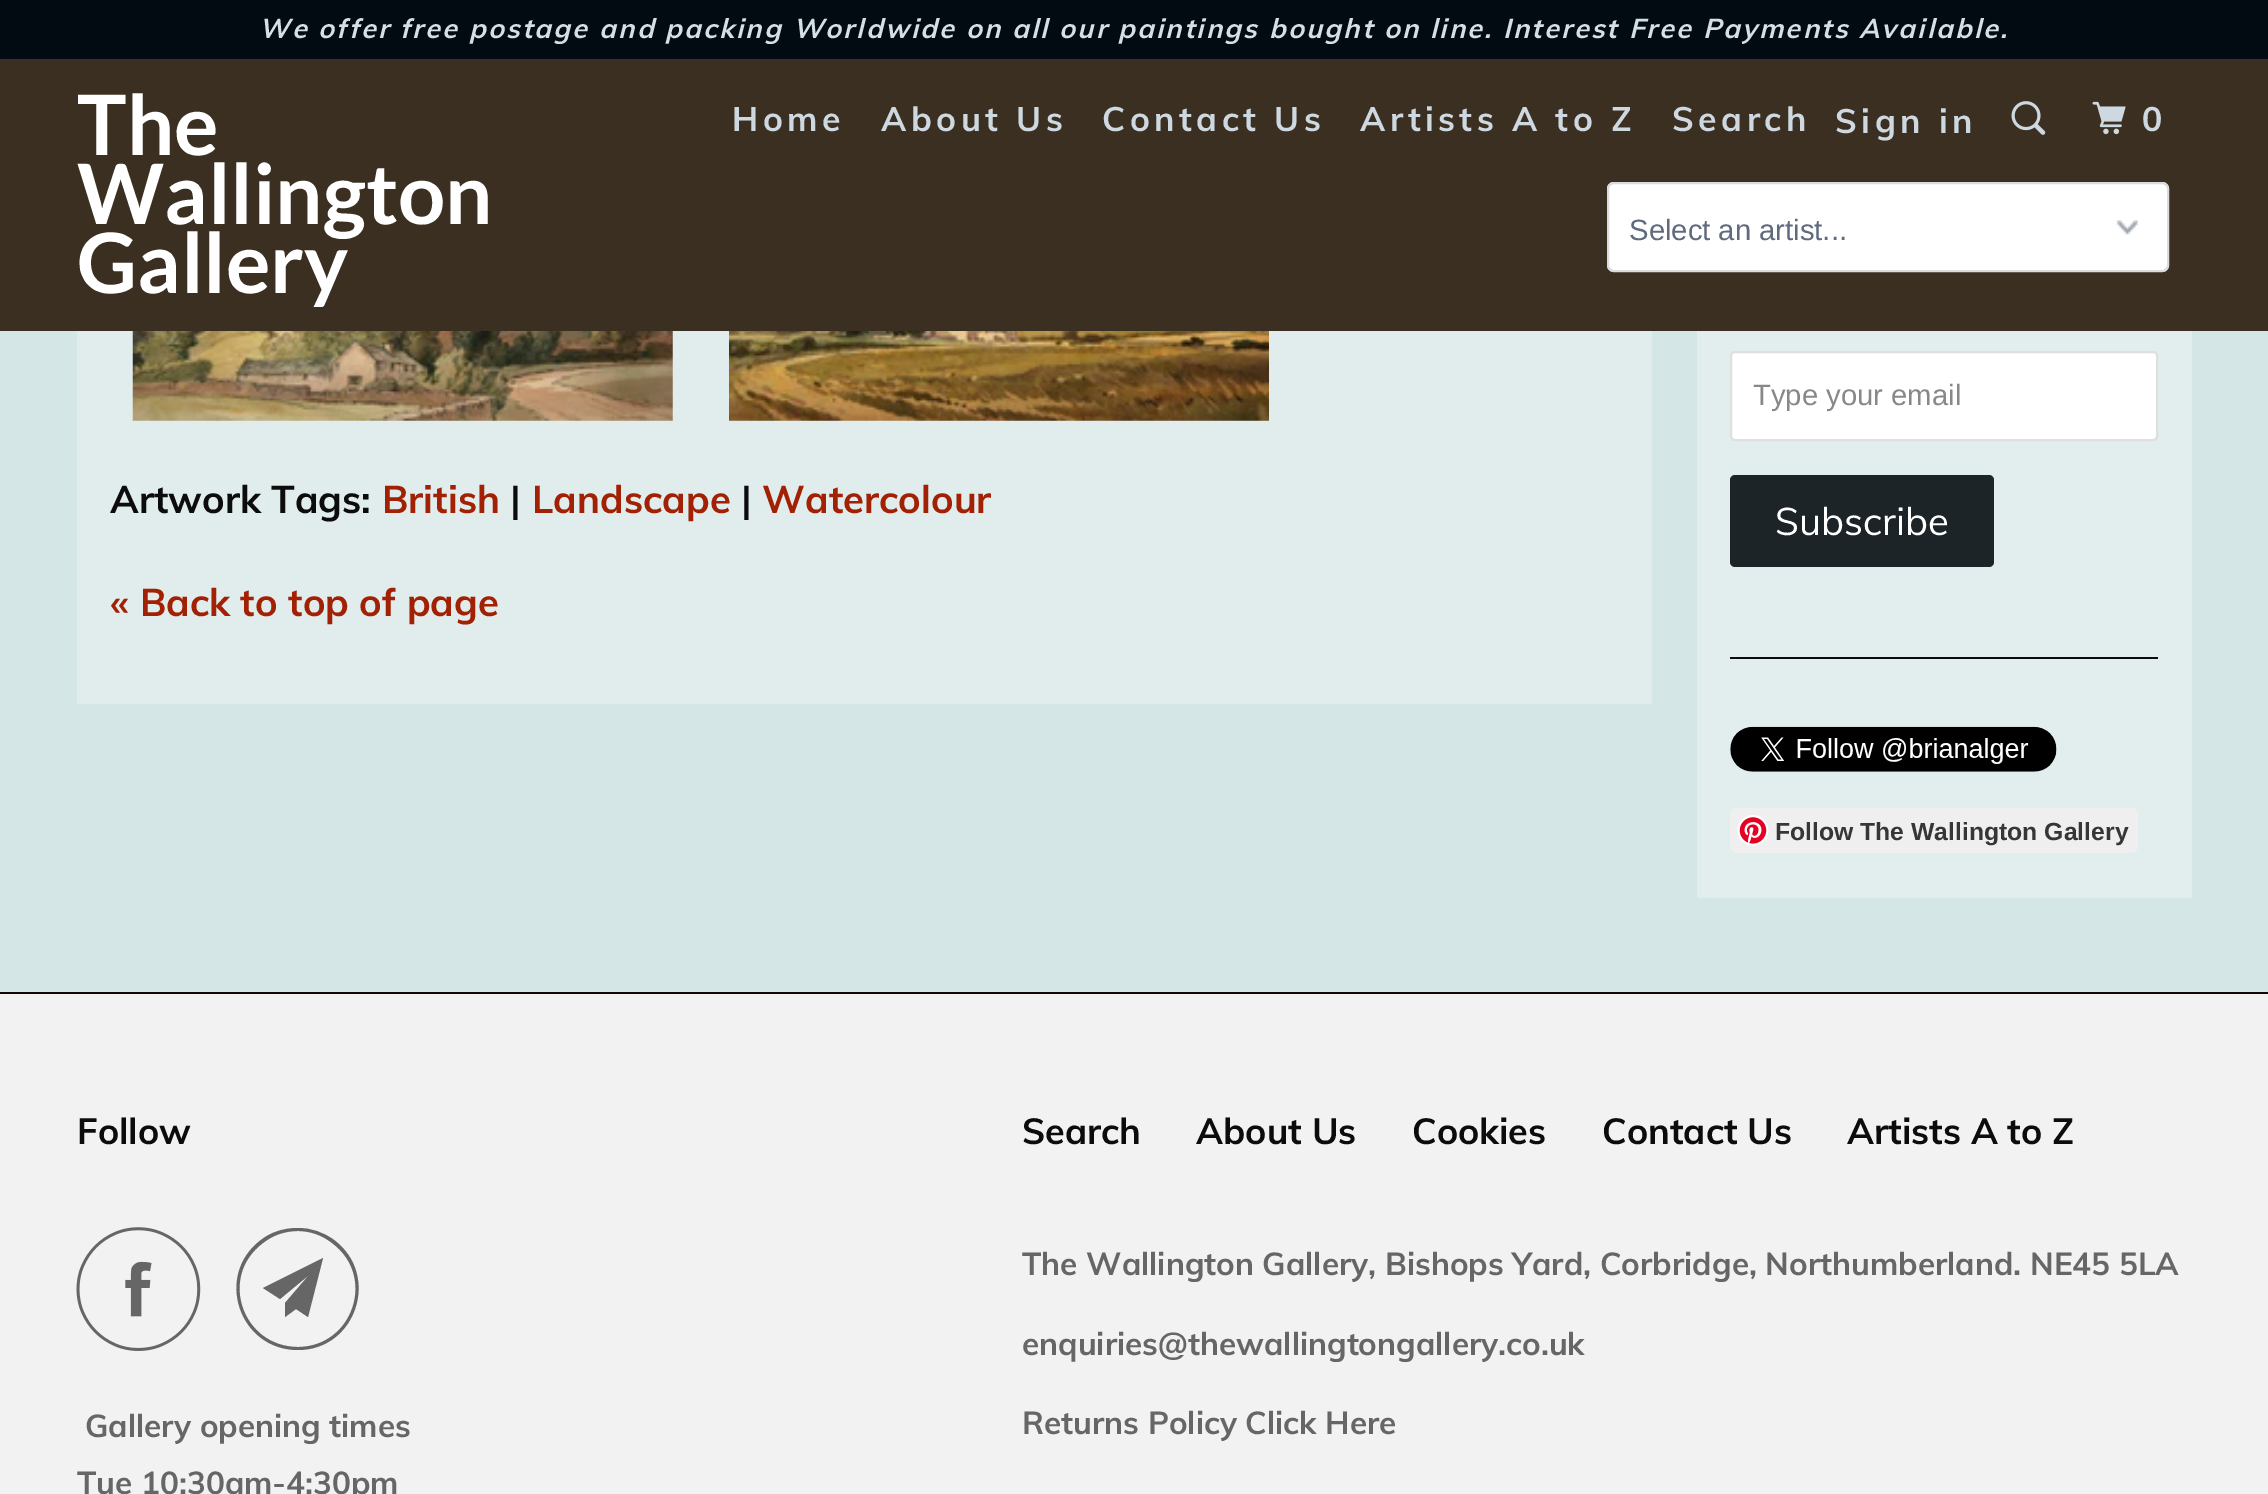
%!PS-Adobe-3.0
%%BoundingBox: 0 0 2268 1494
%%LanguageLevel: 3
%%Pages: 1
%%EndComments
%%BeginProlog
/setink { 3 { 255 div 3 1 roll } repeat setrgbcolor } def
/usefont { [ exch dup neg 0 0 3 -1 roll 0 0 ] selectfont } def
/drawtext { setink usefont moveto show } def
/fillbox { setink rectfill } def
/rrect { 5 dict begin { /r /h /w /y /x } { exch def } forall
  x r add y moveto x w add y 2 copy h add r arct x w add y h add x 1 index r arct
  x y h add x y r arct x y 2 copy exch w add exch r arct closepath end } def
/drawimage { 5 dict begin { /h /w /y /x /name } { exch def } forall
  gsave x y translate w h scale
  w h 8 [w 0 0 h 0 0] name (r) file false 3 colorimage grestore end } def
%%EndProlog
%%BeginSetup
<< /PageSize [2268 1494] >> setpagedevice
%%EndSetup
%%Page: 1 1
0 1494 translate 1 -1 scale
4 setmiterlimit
0 0 2268 1494 213 230 230 fillbox
0 0 2268 59 2 11 18 fillbox
/Muli-BoldItalic 27 usefont
212 223 232 setink
259 38 moveto 2.25 0 (We offer free postage and packing Worldwide on all our paintings bought on line. Interest Free Payments Available.) ashow
0 59 2268 272 59 47 33 fillbox
(The) 77 155 /Lato-Bold 83.25 255 255 255 drawtext
(Wallington) 77 224 /Lato-Bold 83.25 255 255 255 drawtext
(Gallery) 77 293 /Lato-Bold 83.25 255 255 255 drawtext
/Muli-Bold 33.75 usefont
206 216 224 setink
732 131 moveto 4.5 0 (Home) ashow
881 131 moveto 4.5 0 (About Us) ashow
1102 131 moveto 4.5 0 (Contact Us) ashow
1360 131 moveto 4.5 0 (Artists A to Z) ashow
1672 131 moveto 4.5 0 (Search) ashow
1835 133 moveto 4.5 0 (Sign in) ashow
(assets/img1.rgb) 2011 101 35 34 drawimage
(assets/img2.rgb) 2092 101 34 34 drawimage
2142 131 moveto 4.5 0 (0) ashow
255 255 255 setink
1607 182 562 90 7 rrect fill
(assets/img3.rgb) 2116 220 23 15 drawimage
217 219 220 setink
2 setlinewidth
1608 183 560 88 6 rrect stroke
(Select an artist...) 1629 240 /LiberationSans-Regular 29.25 95 106 125 drawtext
77 331 1575 373 225 236 236 fillbox
(assets/img4.rgb) 132 331 541 90 drawimage
(assets/img5.rgb) 729 331 540 90 drawimage
(Artwork Tags:) 110 513 /Muli-Bold 38.25 12 12 13 drawtext
(British) 382 513 /Muli-Bold 38.25 162 33 4 drawtext
(|) 510 513 /Muli-Bold 38.25 12 12 13 drawtext
(Landscape) 532 513 /Muli-Bold 38.25 162 33 4 drawtext
(|) 741 513 /Muli-Bold 38.25 12 12 13 drawtext
(Watercolour) 762 513 /Muli-Bold 38.25 162 33 4 drawtext
(« Back to top of page) 110 616 /Muli-Bold 38.25 162 33 4 drawtext
1697 331 495 567 226 238 238 fillbox
1730 657 428 2 12 12 13 fillbox
255 255 255 setink
1731 352 426 88 4 rrect gsave fill grestore
223 223 223 setink
stroke
(Type your email) 1753 405 /LiberationSans-Regular 29.25 136 136 136 drawtext
29 36 40 setink
1730 475 264 92 5 rrect fill
(Subscribe) 1775 535 /Muli-Regular 38.25 255 255 255 drawtext
(assets/img6.rgb) 1730 726 327 46 drawimage
239 239 239 setink
1730 808 408 45 7 rrect fill
(assets/img7.rgb) 1737 815 32 31 drawimage
(Follow The Wallington Gallery) 1775 840 /LiberationSans-Bold 24.75 54 54 54 drawtext
0 994 2268 500 242 242 242 fillbox
0 992 2268 2 21 5 5 fillbox
(Follow) 77 1144 /Muli-Bold 36 12 12 13 drawtext
(assets/img8.rgb) 76 1227 125 124 drawimage
102 102 102 setink
308 1317 moveto 296 1309 lineto 285 1317 lineto 285 1303 lineto 309 1275 lineto 280 1299 lineto 263 1288 lineto 323 1258 lineto closepath 298 1231 moveto 285 1231 273 1235 263 1243 curveto 218 1276 242 1347 298 1347 curveto 353 1347 377 1276 332 1243 curveto 322 1235 310 1231 298 1231 curveto closepath 298 1350 moveto 239 1350 214 1275 261 1240 curveto 271 1232 284 1228 298 1228 curveto 311 1228 323 1232 334 1240 curveto 381 1275 356 1350 298 1350 curveto closepath fill
(Gallery opening times) 85 1437 /Muli-Bold 31.5 102 102 102 drawtext
(Tue 10:30am-4:30pm) 77 1494 /Muli-Bold 31.5 102 102 102 drawtext
(Search) 1022 1144 /Muli-Bold 36 12 12 13 drawtext
(About Us) 1196 1144 /Muli-Bold 36 12 12 13 drawtext
(Cookies) 1412 1144 /Muli-Bold 36 12 12 13 drawtext
(Contact Us) 1602 1144 /Muli-Bold 36 12 12 13 drawtext
(Artists A to Z) 1847 1144 /Muli-Bold 36 12 12 13 drawtext
(The Wallington Gallery, Bishops Yard, Corbridge, Northumberland. NE45 5LA) 1022 1275 /Muli-Bold 31.5 102 102 102 drawtext
(enquiries@thewallingtongallery.co.uk) 1022 1355 /Muli-Bold 31.5 102 102 102 drawtext
(Returns Policy Click Here) 1022 1434 /Muli-Bold 31.5 102 102 102 drawtext
showpage
%%EOF
